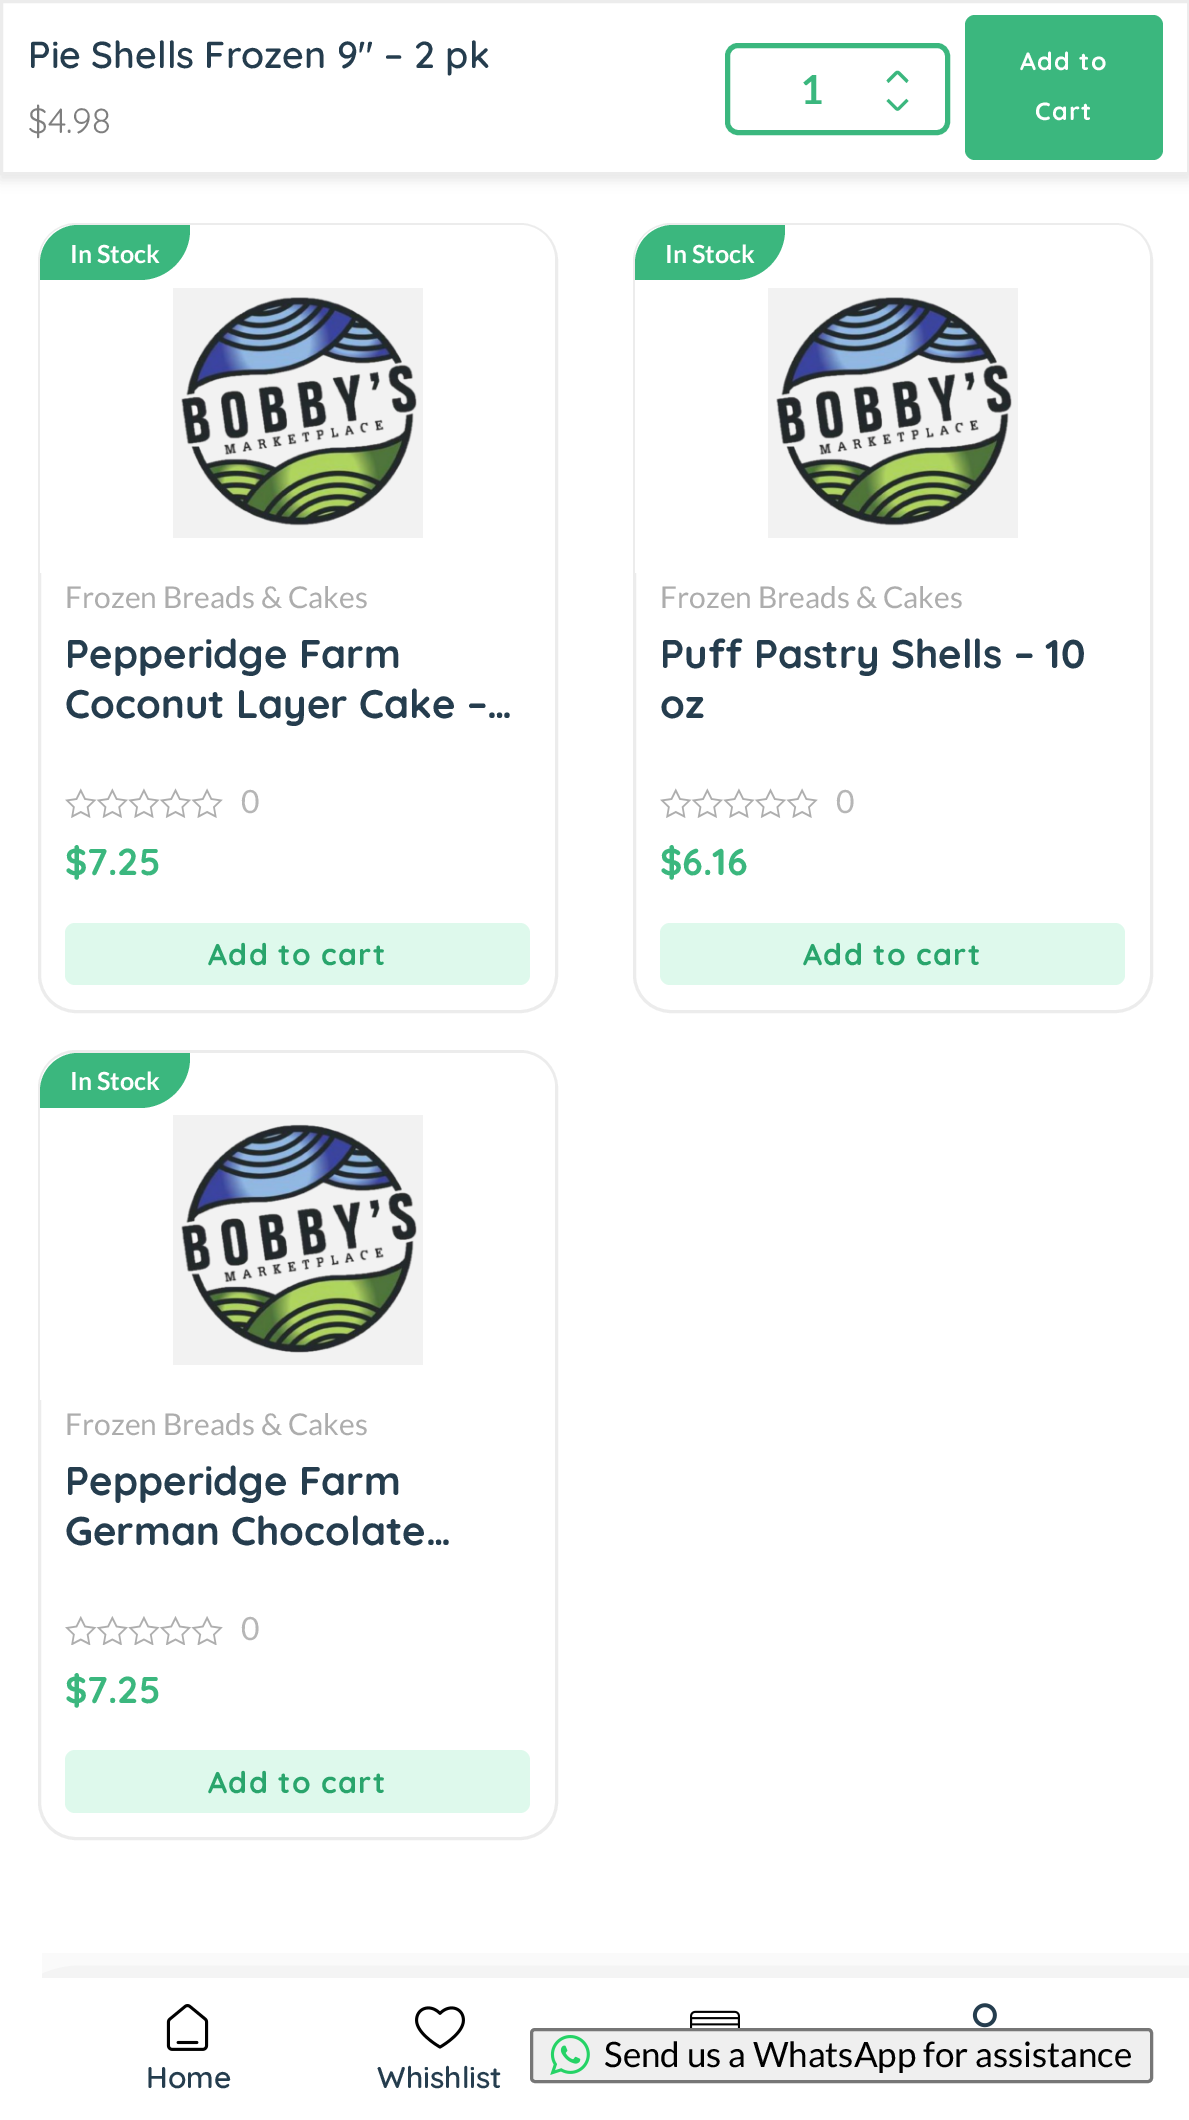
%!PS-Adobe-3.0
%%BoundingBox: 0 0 1189 2120
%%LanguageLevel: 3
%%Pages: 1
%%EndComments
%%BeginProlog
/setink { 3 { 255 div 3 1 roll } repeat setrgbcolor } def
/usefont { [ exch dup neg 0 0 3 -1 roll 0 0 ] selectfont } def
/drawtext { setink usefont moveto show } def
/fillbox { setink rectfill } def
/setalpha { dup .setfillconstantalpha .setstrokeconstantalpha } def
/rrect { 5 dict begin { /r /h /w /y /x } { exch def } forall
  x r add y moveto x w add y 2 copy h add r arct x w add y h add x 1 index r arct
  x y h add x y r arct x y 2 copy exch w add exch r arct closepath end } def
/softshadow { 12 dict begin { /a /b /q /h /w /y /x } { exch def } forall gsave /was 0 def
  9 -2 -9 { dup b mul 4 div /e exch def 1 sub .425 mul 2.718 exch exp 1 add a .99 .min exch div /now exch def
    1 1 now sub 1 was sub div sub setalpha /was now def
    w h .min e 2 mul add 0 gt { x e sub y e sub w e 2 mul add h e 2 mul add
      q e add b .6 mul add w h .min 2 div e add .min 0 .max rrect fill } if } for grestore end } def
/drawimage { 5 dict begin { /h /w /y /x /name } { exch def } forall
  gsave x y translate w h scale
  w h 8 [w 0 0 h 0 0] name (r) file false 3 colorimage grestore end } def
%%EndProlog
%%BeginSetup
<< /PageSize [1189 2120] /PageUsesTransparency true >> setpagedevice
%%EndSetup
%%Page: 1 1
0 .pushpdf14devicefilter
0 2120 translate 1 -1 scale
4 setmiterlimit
0 0 1189 2120 255 255 255 fillbox
0 0 0 setink
0 5 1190 175 0 6 0.1 softshadow
255 255 255 setink
1.5 1.5 moveto 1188.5 1.5 lineto 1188.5 173.5 lineto 1.5 173.5 lineto closepath gsave fill grestore
236 236 236 setink
3 setlinewidth
stroke
(Pie Shells Frozen 9″ – 2 pk) 28 68 /Quicksand-SemiBold 37.5 37 61 78 drawtext
($4.98) 28 133 /Quicksand-Regular 35 126 126 126 drawtext
59 183 126 setink
5 setlinewidth
727.5 45.5 220 87 10.5 rrect stroke
(1) 800 104 /Lato-Bold 40 59 183 126 drawtext
906.5 83 moveto 897.5 74 lineto 888.5 83 lineto 886.5 80.5 lineto 899.5 67.5 895.5 67.5 908.5 80.5 curveto closepath fill
(assets/img1.rgb) 886 98 23 13 drawimage
965 15 198 145 10 rrect fill
/Quicksand-Bold 25 usefont
255 255 255 setink
1020 70 moveto 1.25 0 (Add to) ashow
1035 120 moveto 1.25 0 (Cart) ashow
236 236 236 setink
3 setlinewidth
39.5 224.5 517 787 36.5 rrect stroke
255 255 255 setink
75 225 moveto 520 225 lineto 539.5 225 555 240.5 555 260 curveto 555 573 lineto 40 573 lineto 40 260 lineto 40 240.5 55.5 225 75 225 curveto closepath fill
gsave
40 225 515 785 35 rrect clip newpath
59 183 126 setink
78 225 moveto 190 225 lineto 190 230 lineto 190 257.5 167.5 280 140 280 curveto 40 280 lineto 40 263 lineto 40 242 57 225 78 225 curveto closepath fill
grestore
(In Stock) 70 263 /Lato-Bold 25 255 255 255 drawtext
173 288 250 250 242 242 242 fillbox
(assets/img2.rgb) 181 297 236 229 drawimage
(Frozen Breads & Cakes) 65 608 /Lato-Regular 30 173 173 173 drawtext
(Pepperidge Farm) 65 668 /Quicksand-Bold 40 37 61 78 drawtext
(Coconut Layer Cake –…) 65 718 /Quicksand-Bold 40 37 61 78 drawtext
(assets/img3.rgb) 65 788 158 30 drawimage
(0) 241 813 /Lato-Regular 32 182 182 182 drawtext
($7.25) 65 875 /Quicksand-Bold 37.5 59 183 126 drawtext
222 249 236 setink
65 923 465 62 10 rrect fill
/Quicksand-Bold 30 usefont
41 165 108 setink
208 965 moveto 1.25 0 (Add to cart) ashow
236 236 236 setink
634.5 224.5 517 787 36.5 rrect stroke
255 255 255 setink
670 225 moveto 1115 225 lineto 1134.5 225 1150 240.5 1150 260 curveto 1150 573 lineto 635 573 lineto 635 260 lineto 635 240.5 650.5 225 670 225 curveto closepath fill
gsave
635 225 515 785 35 rrect clip newpath
59 183 126 setink
673 225 moveto 785 225 lineto 785 230 lineto 785 257.5 762.5 280 735 280 curveto 635 280 lineto 635 263 lineto 635 242 652 225 673 225 curveto closepath fill
grestore
(In Stock) 665 263 /Lato-Bold 25 255 255 255 drawtext
768 288 250 250 242 242 242 fillbox
(assets/img2.rgb) 776 297 236 229 drawimage
(Frozen Breads & Cakes) 660 608 /Lato-Regular 30 173 173 173 drawtext
(Puff Pastry Shells – 10) 660 668 /Quicksand-Bold 40 37 61 78 drawtext
(oz) 660 718 /Quicksand-Bold 40 37 61 78 drawtext
(assets/img3.rgb) 660 788 158 30 drawimage
(0) 836 813 /Lato-Regular 32 182 182 182 drawtext
($6.16) 660 875 /Quicksand-Bold 37.5 59 183 126 drawtext
222 249 236 setink
660 923 465 62 10 rrect fill
/Quicksand-Bold 30 usefont
41 165 108 setink
803 965 moveto 1.25 0 (Add to cart) ashow
236 236 236 setink
39.5 1051.5 517 787 36.5 rrect stroke
255 255 255 setink
75 1053 moveto 520 1053 lineto 539.5 1053 555 1068.5 555 1088 curveto 555 1400 lineto 40 1400 lineto 40 1088 lineto 40 1068.5 55.5 1053 75 1053 curveto closepath fill
gsave
40 1053 515 785 35 rrect clip newpath
59 183 126 setink
78 1053 moveto 190 1053 lineto 190 1058 lineto 190 1085.5 167.5 1108 140 1108 curveto 40 1108 lineto 40 1091 lineto 40 1070 57 1053 78 1053 curveto closepath fill
grestore
(In Stock) 70 1090 /Lato-Bold 25 255 255 255 drawtext
173 1115 250 250 242 242 242 fillbox
(assets/img4.rgb) 181 1124 236 229 drawimage
(Frozen Breads & Cakes) 65 1435 /Lato-Regular 30 173 173 173 drawtext
(Pepperidge Farm) 65 1495 /Quicksand-Bold 40 37 61 78 drawtext
(German Chocolate…) 65 1545 /Quicksand-Bold 40 37 61 78 drawtext
(assets/img5.rgb) 65 1616 158 29 drawimage
(0) 241 1640 /Lato-Regular 32 182 182 182 drawtext
($7.25) 65 1703 /Quicksand-Bold 37.5 59 183 126 drawtext
222 249 236 setink
65 1750 465 63 10 rrect fill
/Quicksand-Bold 30 usefont
41 165 108 setink
208 1793 moveto 1.25 0 (Add to cart) ashow
gsave
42 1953 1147 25 rectclip
0 0 0 setink
50 2028 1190 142 0 50 0.3 softshadow
grestore
239 239 239 setink
531.5 2029.5 620 52 3.5 rrect gsave fill grestore
118 118 118 setink
stroke
(assets/img6.rgb) 550 2035 40 40 drawimage
(Send us a WhatsApp for assistance) 604 2067 /Lato-Regular 35 0 0 0 drawtext
(assets/img7.rgb) 690 2010 50 18 drawimage
(assets/img8.rgb) 972 2003 25 25 drawimage
(assets/img9.rgb) 166 2004 43 47 drawimage
(Home) 146 2088 /Quicksand-SemiBold 30 37 61 78 drawtext
(assets/img10.rgb) 415 2006 50 43 drawimage
(Whishlist) 377 2088 /Quicksand-SemiBold 30 37 61 78 drawtext
.poppdf14devicefilter showpage
%%EOF
